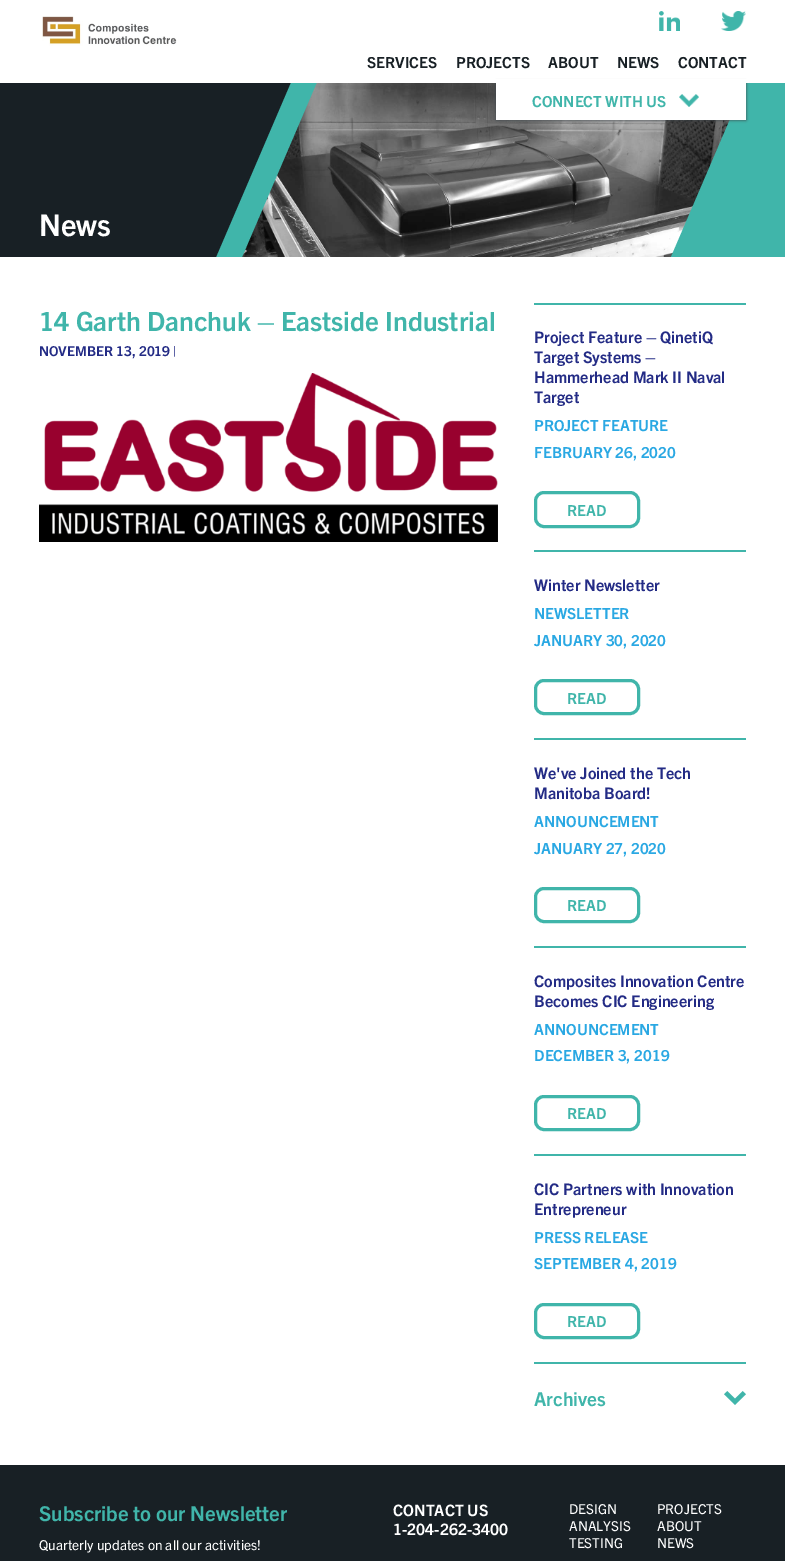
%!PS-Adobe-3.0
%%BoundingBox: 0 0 785 1561
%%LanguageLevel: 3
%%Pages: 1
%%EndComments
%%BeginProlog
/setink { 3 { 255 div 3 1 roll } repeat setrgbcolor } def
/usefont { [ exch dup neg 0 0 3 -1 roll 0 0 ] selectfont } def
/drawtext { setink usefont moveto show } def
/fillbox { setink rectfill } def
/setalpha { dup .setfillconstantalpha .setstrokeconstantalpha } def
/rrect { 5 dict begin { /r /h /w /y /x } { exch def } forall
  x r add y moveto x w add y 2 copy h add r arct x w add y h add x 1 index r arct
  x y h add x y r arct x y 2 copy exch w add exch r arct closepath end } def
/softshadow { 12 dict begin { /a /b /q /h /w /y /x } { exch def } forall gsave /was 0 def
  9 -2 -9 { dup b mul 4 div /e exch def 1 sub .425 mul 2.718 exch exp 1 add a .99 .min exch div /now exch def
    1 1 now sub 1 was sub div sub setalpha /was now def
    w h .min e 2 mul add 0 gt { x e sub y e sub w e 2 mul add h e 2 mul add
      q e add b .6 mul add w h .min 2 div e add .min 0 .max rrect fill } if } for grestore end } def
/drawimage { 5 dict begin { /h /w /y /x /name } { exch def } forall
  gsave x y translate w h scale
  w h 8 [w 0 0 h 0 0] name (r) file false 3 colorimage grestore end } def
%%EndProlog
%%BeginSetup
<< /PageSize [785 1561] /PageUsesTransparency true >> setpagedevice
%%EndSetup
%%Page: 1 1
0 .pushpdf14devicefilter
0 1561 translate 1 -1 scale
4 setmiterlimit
0 0 785 1561 255 255 255 fillbox
746 83 39 174 64 181 170 fillbox
(assets/img5.rgb) 242 83 488 174 drawimage
746 82 moveto 746 257 lineto 671 257 lineto closepath fill
60 68 73 setink
496 82 250 38 0 1.5 1 softshadow
216 196 26 61 64 181 170 fillbox
242 257 moveto 242 82 lineto 317 82 lineto closepath fill
24 32 37 setink
216 257 moveto 216 82 lineto 291 82 lineto closepath fill
216 79 533 4 255 255 255 fillbox
(assets/img1.rgb) 42 16 135 30 drawimage
(assets/img2.rgb) 659 11 21 20 drawimage
(assets/img3.rgb) 721 11 25 20 drawimage
(SERVICES) 367 68 /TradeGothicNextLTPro-Bold 15.25 24 32 37 drawtext
(PROJECTS) 456 68 /TradeGothicNextLTPro-Bold 15.25 24 32 37 drawtext
(ABOUT) 548 68 /TradeGothicNextLTPro-Bold 15.25 24 32 37 drawtext
(NEWS) 617 68 /TradeGothicNextLTPro-Bold 15.25 24 32 37 drawtext
(CONTACT) 678 68 /TradeGothicNextLTPro-Bold 15.25 24 32 37 drawtext
496 83 250 37 255 255 255 fillbox
(CONNECT WITH US) 532 107 /TradeGothicNextLTPro-Bold 15.25 64 181 170 drawtext
(assets/img4.rgb) 679 94 20 13 drawimage
0 83 216 174 24 32 37 fillbox
(News) 39 236 /TradeGothicNextLTPro-Bold 30 255 255 255 drawtext
(14 Garth Danchuk – Eastside Industrial) 39 331 /TradeGothicNextLTPro-Bold 26.6 64 181 170 drawtext
(NOVEMBER 13, 2019 |) 39 356 /TradeGothicNextLTPro-Bold 13.7 35 43 133 drawtext
(assets/img6.rgb) 39 373 459 169 drawimage
534 303 212 2 64 181 170 fillbox
534 550 212 2 64 181 170 fillbox
(Project Feature – QinetiQ) 534 343 /TradeGothicNextLTPro-Bold 16 35 43 133 drawtext
(Target Systems –) 534 363 /TradeGothicNextLTPro-Bold 16 35 43 133 drawtext
(Hammerhead Mark II Naval) 534 383 /TradeGothicNextLTPro-Bold 16 35 43 133 drawtext
(Target) 534 403 /TradeGothicNextLTPro-Bold 16 35 43 133 drawtext
(PROJECT FEATURE) 534 431 /TradeGothicNextLTPro-Bold 15.25 42 168 227 drawtext
(FEBRUARY 26, 2020) 534 458 /TradeGothicNextLTPro-Bold 15.25 42 168 227 drawtext
64 181 170 setink
3 setlinewidth
535.5 492.5 103 34 8.5 rrect stroke
(READ) 567 516 /TradeGothicNextLTPro-Bold 15.25 64 181 170 drawtext
534 738 212 2 64 181 170 fillbox
(Winter Newsletter) 534 591 /TradeGothicNextLTPro-Bold 16 35 43 133 drawtext
(NEWSLETTER) 534 619 /TradeGothicNextLTPro-Bold 15.25 42 168 227 drawtext
(JANUARY 30, 2020) 534 646 /TradeGothicNextLTPro-Bold 15.25 42 168 227 drawtext
64 181 170 setink
535.5 680.5 103 33 8.5 rrect stroke
(READ) 567 704 /TradeGothicNextLTPro-Bold 15.25 64 181 170 drawtext
534 946 212 2 64 181 170 fillbox
(We've Joined the Tech) 534 779 /TradeGothicNextLTPro-Bold 16 35 43 133 drawtext
(Manitoba Board!) 534 799 /TradeGothicNextLTPro-Bold 16 35 43 133 drawtext
(ANNOUNCEMENT) 534 827 /TradeGothicNextLTPro-Bold 15.25 42 168 227 drawtext
(JANUARY 27, 2020) 534 854 /TradeGothicNextLTPro-Bold 15.25 42 168 227 drawtext
64 181 170 setink
535.5 888.5 103 33 8.5 rrect stroke
(READ) 567 911 /TradeGothicNextLTPro-Bold 15.25 64 181 170 drawtext
534 1154 212 2 64 181 170 fillbox
(Composites Innovation Centre) 534 987 /TradeGothicNextLTPro-Bold 16 35 43 133 drawtext
(Becomes CIC Engineering) 534 1007 /TradeGothicNextLTPro-Bold 16 35 43 133 drawtext
(ANNOUNCEMENT) 534 1035 /TradeGothicNextLTPro-Bold 15.25 42 168 227 drawtext
(DECEMBER 3, 2019) 534 1061 /TradeGothicNextLTPro-Bold 15.25 42 168 227 drawtext
64 181 170 setink
535.5 1096.5 103 33 8.5 rrect stroke
(READ) 567 1119 /TradeGothicNextLTPro-Bold 15.25 64 181 170 drawtext
534 1362 212 2 64 181 170 fillbox
(CIC Partners with Innovation) 534 1195 /TradeGothicNextLTPro-Bold 16 35 43 133 drawtext
(Entrepreneur) 534 1215 /TradeGothicNextLTPro-Bold 16 35 43 133 drawtext
(PRESS RELEASE) 534 1243 /TradeGothicNextLTPro-Bold 15.25 42 168 227 drawtext
(SEPTEMBER 4, 2019) 534 1269 /TradeGothicNextLTPro-Bold 15.25 42 168 227 drawtext
64 181 170 setink
535.5 1304.5 103 33 8.5 rrect stroke
(READ) 567 1327 /TradeGothicNextLTPro-Bold 15.25 64 181 170 drawtext
(assets/img7.rgb) 724 1391 22 14 drawimage
(Archives) 534 1406 /TradeGothicNextLTPro-Bold 19 64 181 170 drawtext
0 1465 785 96 24 32 37 fillbox
(Subscribe to our Newsletter) 39 1521 /TradeGothicNextLTPro-Bold 20.5 64 181 170 drawtext
(Quarterly updates on all our activities!) 39 1550 /TradeGothicNextLTPro-Regular 13.7 255 255 255 drawtext
(CONTACT US) 393 1516 /TradeGothicNextLTPro-Bold 15.75 255 255 255 drawtext
(1-204-262-3400) 393 1535 /TradeGothicNextLTPro-Bold 15.75 255 255 255 drawtext
(DESIGN) 569 1514 /TradeGothicNextLTPro-Regular 13.7 255 255 255 drawtext
(ANALYSIS) 569 1531 /TradeGothicNextLTPro-Regular 13.7 255 255 255 drawtext
(TESTING) 569 1548 /TradeGothicNextLTPro-Regular 13.7 255 255 255 drawtext
(PROJECTS) 657 1514 /TradeGothicNextLTPro-Regular 13.7 255 255 255 drawtext
(ABOUT) 657 1531 /TradeGothicNextLTPro-Regular 13.7 255 255 255 drawtext
(NEWS) 657 1548 /TradeGothicNextLTPro-Regular 13.7 255 255 255 drawtext
.poppdf14devicefilter showpage
%%EOF
